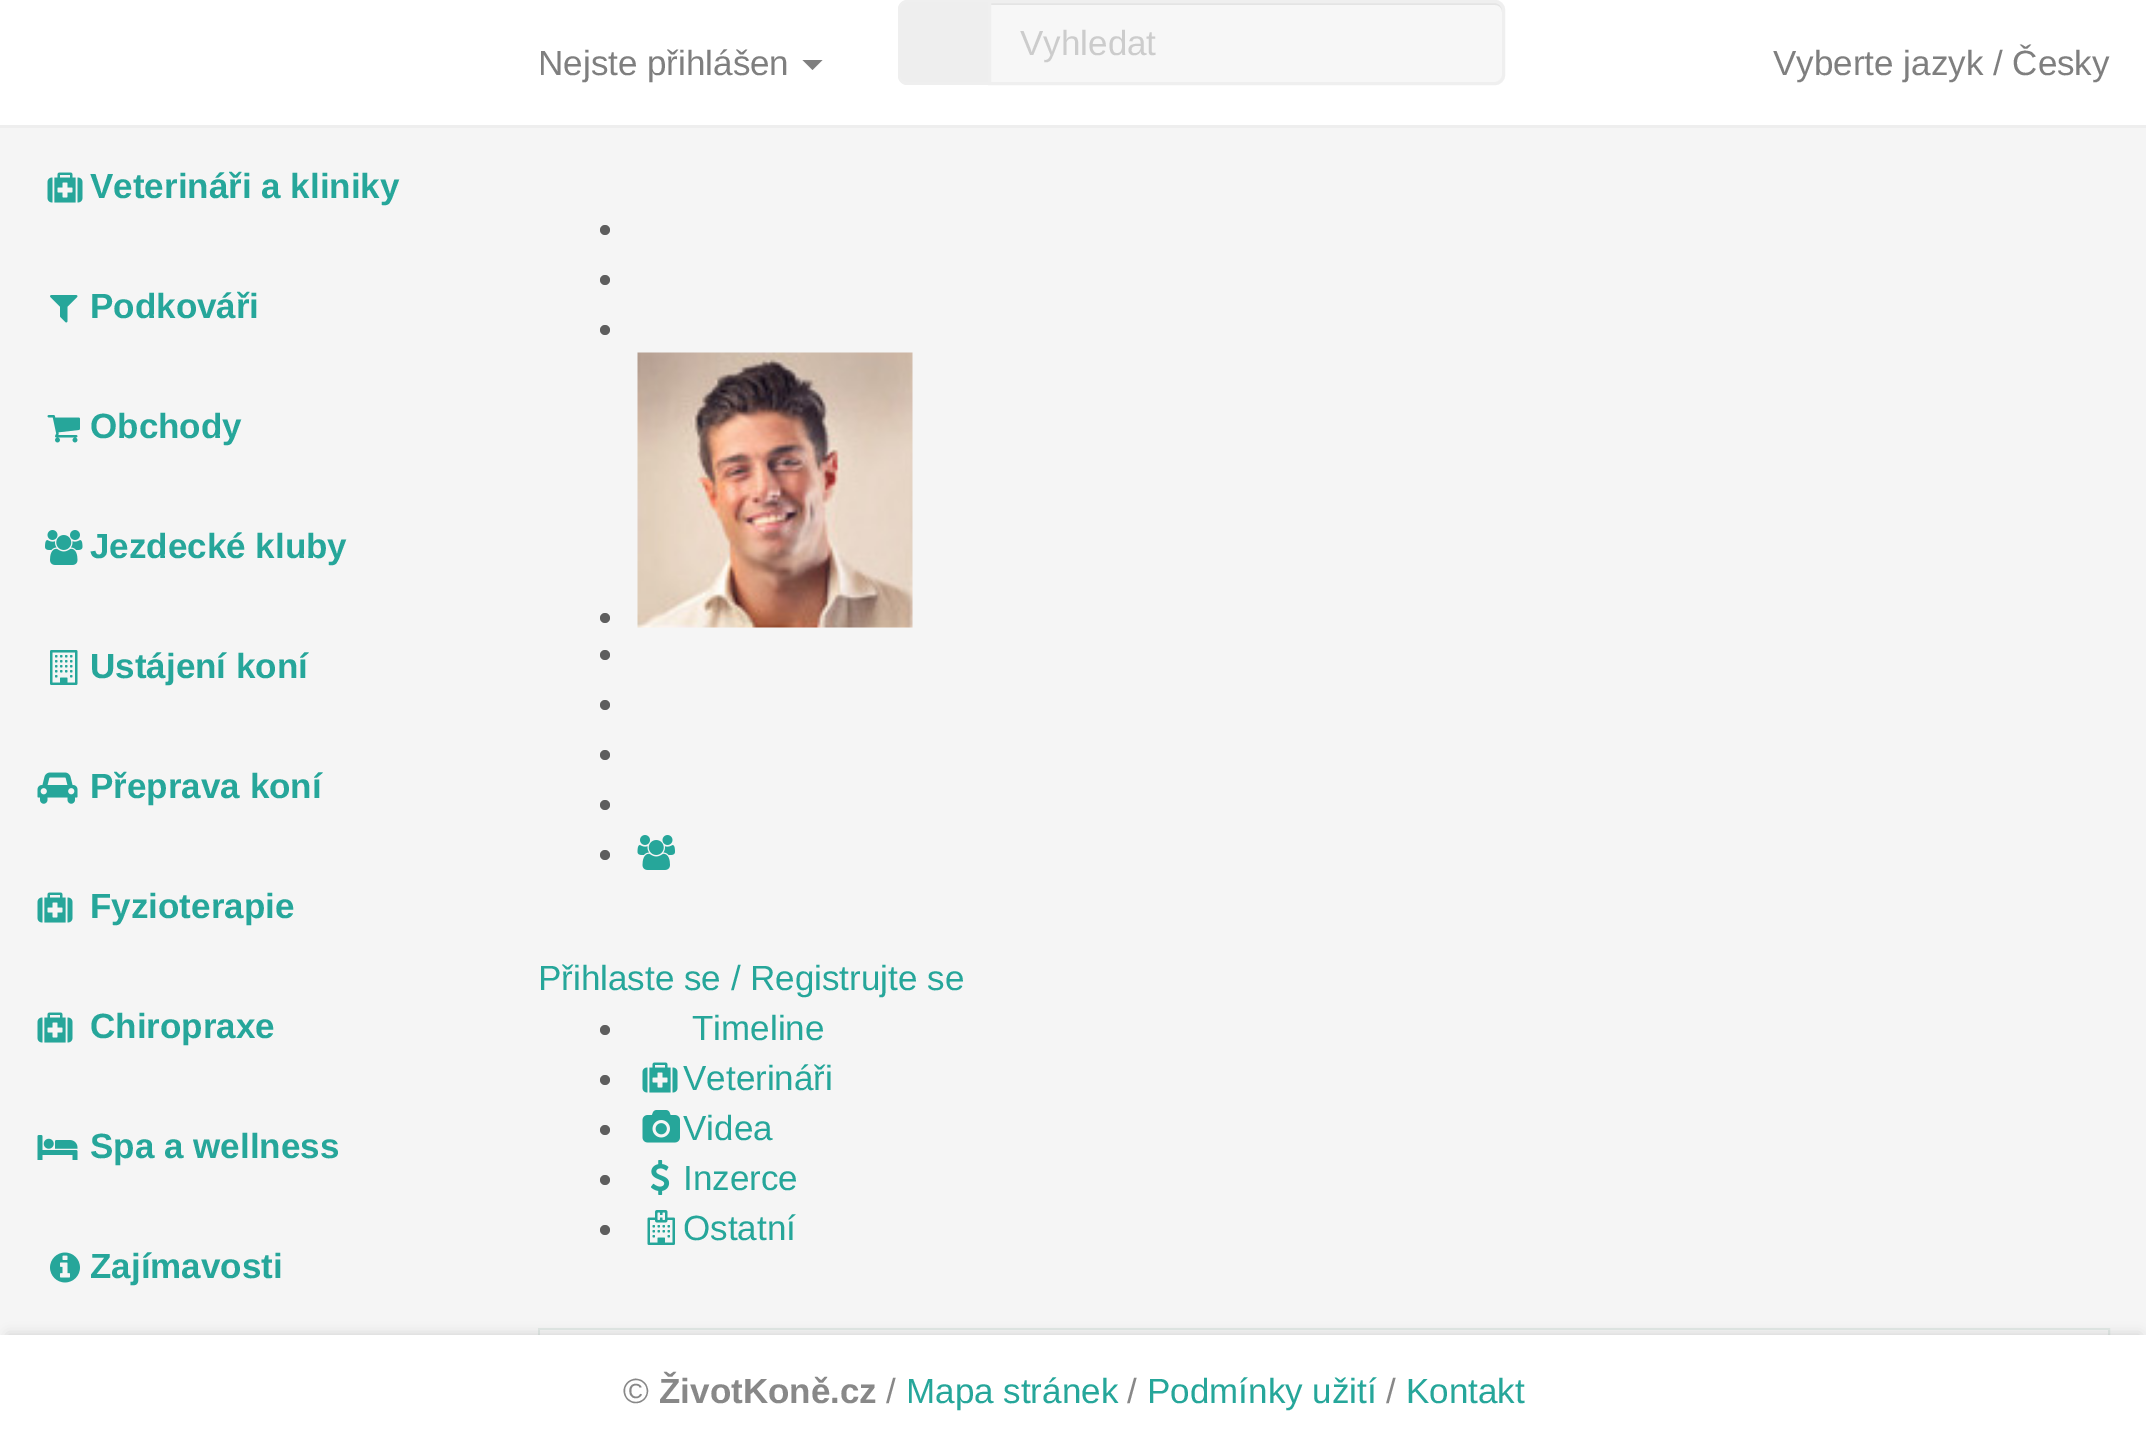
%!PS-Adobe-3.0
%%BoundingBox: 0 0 2146 1446
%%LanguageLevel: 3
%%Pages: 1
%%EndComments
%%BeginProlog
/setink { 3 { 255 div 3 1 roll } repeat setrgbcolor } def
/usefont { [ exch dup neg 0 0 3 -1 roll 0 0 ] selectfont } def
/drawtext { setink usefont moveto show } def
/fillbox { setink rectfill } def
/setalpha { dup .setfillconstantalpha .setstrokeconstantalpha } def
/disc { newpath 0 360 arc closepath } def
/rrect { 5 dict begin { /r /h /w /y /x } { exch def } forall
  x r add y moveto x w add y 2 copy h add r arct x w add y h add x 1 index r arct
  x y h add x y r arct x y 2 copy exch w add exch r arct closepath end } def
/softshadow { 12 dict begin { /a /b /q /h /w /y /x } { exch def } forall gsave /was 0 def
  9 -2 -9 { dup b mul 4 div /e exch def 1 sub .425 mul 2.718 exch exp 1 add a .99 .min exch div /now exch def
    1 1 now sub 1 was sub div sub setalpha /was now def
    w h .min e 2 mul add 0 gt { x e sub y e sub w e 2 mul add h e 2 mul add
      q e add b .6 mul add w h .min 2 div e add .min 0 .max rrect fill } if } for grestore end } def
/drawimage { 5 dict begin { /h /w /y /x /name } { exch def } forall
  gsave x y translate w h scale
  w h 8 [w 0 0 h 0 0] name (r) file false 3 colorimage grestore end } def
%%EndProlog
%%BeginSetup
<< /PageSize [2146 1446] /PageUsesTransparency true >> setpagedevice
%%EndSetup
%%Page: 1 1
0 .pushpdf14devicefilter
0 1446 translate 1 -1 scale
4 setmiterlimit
0 0 2146 1446 245 245 245 fillbox
0 0 2146 125 255 255 255 fillbox
0 125 2146 3 238 238 238 fillbox
(Nejste přihlášen) 538 75 /LiberationSans-Regular 35 127 127 127 drawtext
802.5 60 moveto 822.5 60 lineto 812.5 70 lineto closepath fill
238 238 238 setink
908 0 moveto 988 0 lineto 988 85 lineto 908 85 lineto 902.5 85 898 80.5 898 75 curveto 898 10 lineto 898 4.5 902.5 0 908 0 curveto closepath fill
239 239 239 setink
908 0 moveto 988 0 lineto 988 85 lineto 908 85 lineto 902 85 898 81 898 75 curveto 898 10 lineto 898 4 902 0 908 0 curveto closepath 908 2 moveto 988 2 lineto 988 82 lineto 908 82 lineto 903 82 900 79 900 75 curveto 900 10 lineto 900 6 903 2 908 2 curveto closepath eofill
247 247 247 setink
988 0 moveto 1495 0 lineto 1500.5 0 1505 4.5 1505 10 curveto 1505 75 lineto 1505 80.5 1500.5 85 1495 85 curveto 988 85 lineto closepath fill
228 228 228 setink
990 5 moveto 1495 5 lineto 1499 5 1502 8 1502 12 curveto 1502 79 lineto 1503 78 1503 76 1503 75 curveto 1503 11 lineto 1503 7 1499 3 1495 3 curveto 990 3 lineto closepath fill
239 239 239 setink
3 setlinewidth
989.5 1.5 moveto 1495 1.5 lineto 1499.5 1.5 1503.5 5.5 1503.5 10 curveto 1503.5 75 lineto 1503.5 79.5 1499.5 83.5 1495 83.5 curveto 989.5 83.5 lineto closepath stroke
(Vyhledat) 1020 55 /LiberationSans-Regular 35 204 204 204 drawtext
(Vyberte jazyk / Česky) 1773 75 /LiberationSans-Regular 35 127 127 127 drawtext
(assets/img1.rgb) 47 172 36 31 drawimage
(Veterináři a kliniky) 90 198 /LiberationSans-Bold 35 38 166 154 drawtext
(assets/img2.rgb) 50 295 28 28 drawimage
(Podkováři) 90 318 /LiberationSans-Bold 35 38 166 154 drawtext
(assets/img3.rgb) 47 415 33 28 drawimage
(Obchody) 90 438 /LiberationSans-Bold 35 38 166 154 drawtext
(assets/img4.rgb) 45 530 38 35 drawimage
(Jezdecké kluby) 90 558 /LiberationSans-Bold 35 38 166 154 drawtext
(assets/img5.rgb) 50 650 28 35 drawimage
(Ustájení koní) 90 678 /LiberationSans-Bold 35 38 166 154 drawtext
(assets/img6.rgb) 37 772 41 32 drawimage
(Přeprava koní) 90 798 /LiberationSans-Bold 35 38 166 154 drawtext
(assets/img1.rgb) 37 892 36 31 drawimage
(Fyzioterapie) 90 918 /LiberationSans-Bold 35 38 166 154 drawtext
(assets/img1.rgb) 37 1012 36 31 drawimage
(Chiropraxe) 90 1038 /LiberationSans-Bold 35 38 166 154 drawtext
(assets/img7.rgb) 37 1135 41 25 drawimage
(Spa a wellness) 90 1158 /LiberationSans-Bold 35 38 166 154 drawtext
(assets/img8.rgb) 50 1252 30 31 drawimage
(Zajímavosti) 90 1278 /LiberationSans-Bold 35 38 166 154 drawtext
94 94 94 setink
605 230 5 disc fill
605 280 5 disc fill
605 330 5 disc fill
605 618 5 disc fill
(assets/img9.rgb) 637 352 276 276 drawimage
605 655 5 disc fill
605 705 5 disc fill
605 755 5 disc fill
605 805 5 disc fill
605 855 5 disc fill
(assets/img10.rgb) 637 835 38 35 drawimage
(Přihlaste se / Registrujte se) 538 990 /LiberationSans-Regular 35 38 166 154 drawtext
94 94 94 setink
605 1030 5 disc fill
(Timeline) 692 1040 /LiberationSans-Regular 35 38 166 154 drawtext
94 94 94 setink
605 1080 5 disc fill
(assets/img1.rgb) 642 1062 36 31 drawimage
(Veterináři) 683 1090 /LiberationSans-Regular 35 38 166 154 drawtext
94 94 94 setink
605 1130 5 disc fill
(assets/img11.rgb) 642 1110 38 33 drawimage
(Videa) 683 1140 /LiberationSans-Regular 35 38 166 154 drawtext
94 94 94 setink
605 1180 5 disc fill
(assets/img12.rgb) 651 1160 19 35 drawimage
(Inzerce) 683 1190 /LiberationSans-Regular 35 38 166 154 drawtext
94 94 94 setink
605 1230 5 disc fill
(assets/img13.rgb) 647 1210 28 35 drawimage
(Ostatní) 683 1240 /LiberationSans-Regular 35 38 166 154 drawtext
226 233 230 setink
539.5 1329.5 1569 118 rectstroke
540 1330 1568 5 245 245 245 fillbox
0 0 0 setink
8 1335 2132 98 0 6 0.15 softshadow
0 1335 2146 111 255 255 255 fillbox
(©) 623 1403 /LiberationSans-Regular 35 136 136 136 drawtext
(ŽivotKoně.cz) 659 1403 /LiberationSans-Bold 35 136 136 136 drawtext
(/) 886 1403 /LiberationSans-Regular 35 136 136 136 drawtext
(Mapa stránek) 906 1403 /LiberationSans-Regular 35 38 166 154 drawtext
(/) 1127 1403 /LiberationSans-Regular 35 136 136 136 drawtext
(Podmínky užití) 1147 1403 /LiberationSans-Regular 35 38 166 154 drawtext
(/) 1386 1403 /LiberationSans-Regular 35 136 136 136 drawtext
(Kontakt) 1406 1403 /LiberationSans-Regular 35 38 166 154 drawtext
.poppdf14devicefilter showpage
%%EOF
